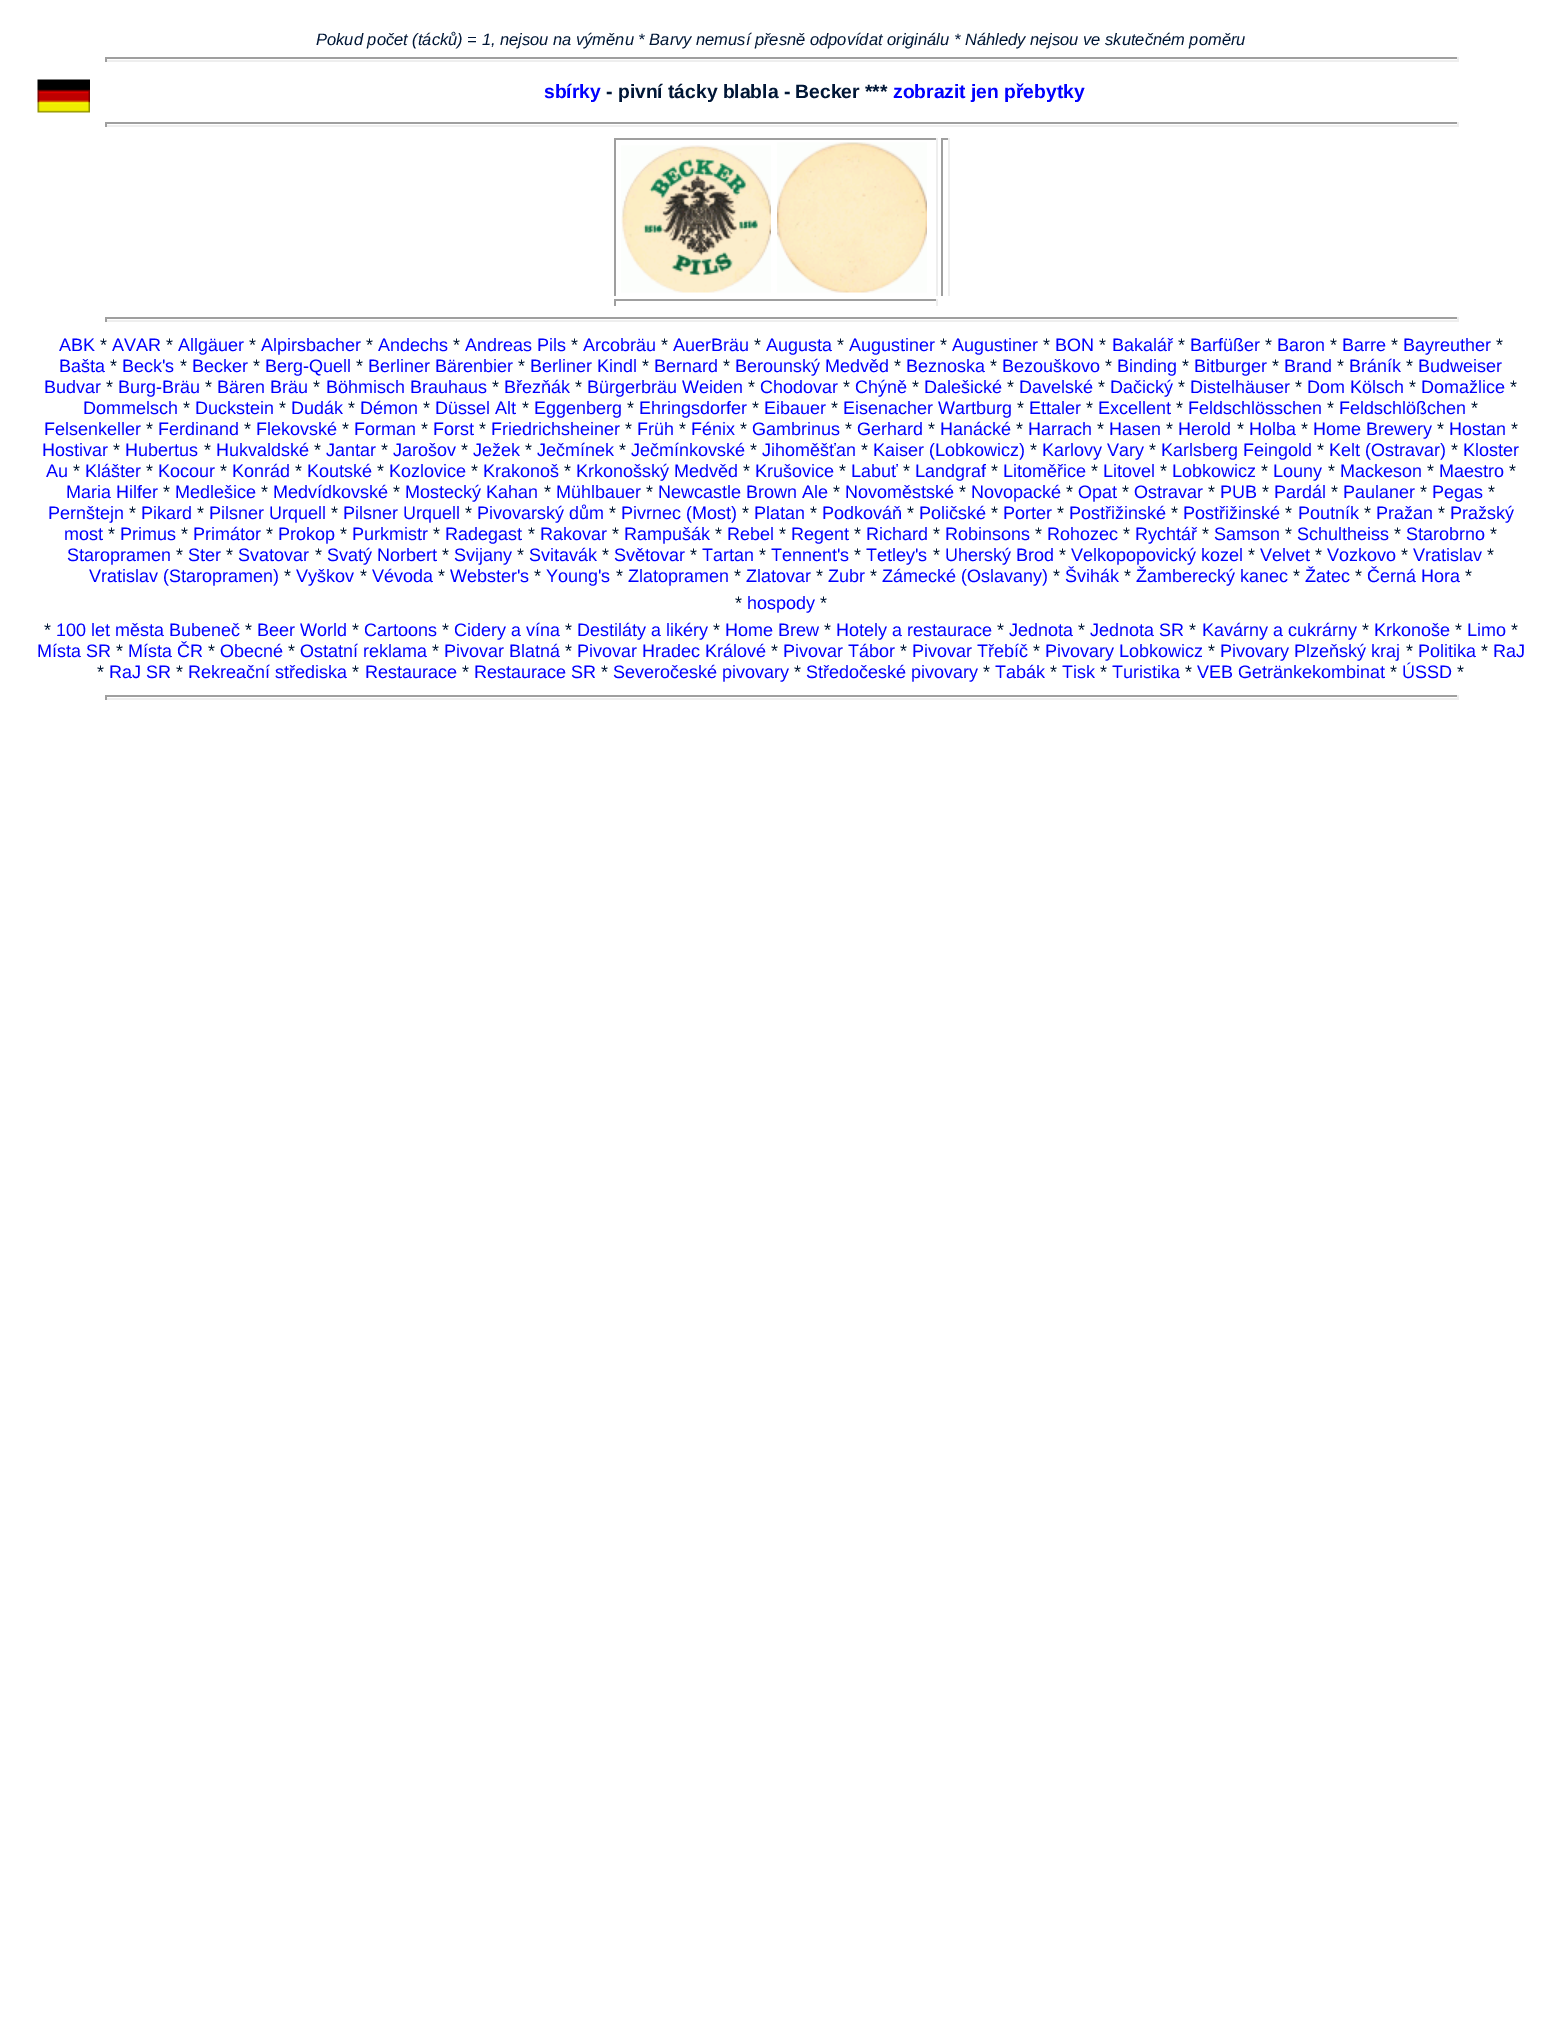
%!PS-Adobe-3.0
%%BoundingBox: 0 0 1561 2018
%%LanguageLevel: 3
%%Pages: 1
%%EndComments
%%BeginProlog
/setink { 3 { 255 div 3 1 roll } repeat setrgbcolor } def
/usefont { [ exch dup neg 0 0 3 -1 roll 0 0 ] selectfont } def
/drawtext { setink usefont moveto show } def
/fillbox { setink rectfill } def
/drawimage { 5 dict begin { /h /w /y /x /name } { exch def } forall
  gsave x y translate w h scale
  w h 8 [w 0 0 h 0 0] name (r) file false 3 colorimage grestore end } def
%%EndProlog
%%BeginSetup
<< /PageSize [1561 2018] >> setpagedevice
%%EndSetup
%%Page: 1 1
0 2018 translate 1 -1 scale
4 setmiterlimit
0 0 1561 2018 255 255 255 fillbox
(Pokud počet \(tácků\) = 1, nejsou na výměnu * Barvy nemusí přesně odpovídat originálu * Náhledy nejsou ve skutečném poměru) 316 45 /LiberationSans-Italic 16.5 0 22 54 drawtext
105 57 1353 2 159 159 159 fillbox
1457 57 2 5 238 238 238 fillbox
105 60 1353 2 238 238 238 fillbox
105 57 2 5 159 159 159 fillbox
(assets/img1.rgb) 37 79 53 34 drawimage
(sbírky) 544 98 /LiberationSans-Bold 19.25 0 0 255 drawtext
(- pivní tácky blabla - Becker ***) 606 98 /LiberationSans-Bold 19.25 0 22 54 drawtext
(zobrazit jen přebytky) 893 98 /LiberationSans-Bold 19.25 0 0 255 drawtext
105 122 1353 2 159 159 159 fillbox
1457 122 2 5 238 238 238 fillbox
105 125 1353 2 238 238 238 fillbox
105 122 2 5 159 159 159 fillbox
614 138 324 2 159 159 159 fillbox
936 138 2 158 238 238 238 fillbox
614 138 2 158 159 159 159 fillbox
(assets/img2.rgb) 621 145 150 148 drawimage
(assets/img3.rgb) 777 142 150 151 drawimage
941 138 9 2 159 159 159 fillbox
948 138 2 158 238 238 238 fillbox
941 138 2 158 159 159 159 fillbox
614 299 324 2 159 159 159 fillbox
936 299 2 7 238 238 238 fillbox
614 299 2 7 159 159 159 fillbox
105 317 1353 2 159 159 159 fillbox
1457 317 2 5 238 238 238 fillbox
105 320 1353 2 238 238 238 fillbox
105 317 2 5 159 159 159 fillbox
(ABK) 59 351 /LiberationSans-Regular 18 0 0 255 drawtext
(*) 100 351 /LiberationSans-Regular 18 0 22 54 drawtext
(AVAR) 112 351 /LiberationSans-Regular 18 0 0 255 drawtext
(*) 166 351 /LiberationSans-Regular 18 0 22 54 drawtext
(Allgäuer) 178 351 /LiberationSans-Regular 18 0 0 255 drawtext
(*) 249 351 /LiberationSans-Regular 18 0 22 54 drawtext
(Alpirsbacher) 261 351 /LiberationSans-Regular 18 0 0 255 drawtext
(*) 366 351 /LiberationSans-Regular 18 0 22 54 drawtext
(Andechs) 378 351 /LiberationSans-Regular 18 0 0 255 drawtext
(*) 453 351 /LiberationSans-Regular 18 0 22 54 drawtext
(Andreas Pils) 465 351 /LiberationSans-Regular 18 0 0 255 drawtext
(*) 571 351 /LiberationSans-Regular 18 0 22 54 drawtext
(Arcobräu) 583 351 /LiberationSans-Regular 18 0 0 255 drawtext
(*) 661 351 /LiberationSans-Regular 18 0 22 54 drawtext
(AuerBräu) 673 351 /LiberationSans-Regular 18 0 0 255 drawtext
(*) 754 351 /LiberationSans-Regular 18 0 22 54 drawtext
(Augusta) 766 351 /LiberationSans-Regular 18 0 0 255 drawtext
(*) 837 351 /LiberationSans-Regular 18 0 22 54 drawtext
(Augustiner) 849 351 /LiberationSans-Regular 18 0 0 255 drawtext
(*) 940 351 /LiberationSans-Regular 18 0 22 54 drawtext
(Augustiner) 952 351 /LiberationSans-Regular 18 0 0 255 drawtext
(*) 1043 351 /LiberationSans-Regular 18 0 22 54 drawtext
(BON) 1055 351 /LiberationSans-Regular 18 0 0 255 drawtext
(*) 1099 351 /LiberationSans-Regular 18 0 22 54 drawtext
(Bakalář) 1112 351 /LiberationSans-Regular 18 0 0 255 drawtext
(*) 1178 351 /LiberationSans-Regular 18 0 22 54 drawtext
(Barfüßer) 1190 351 /LiberationSans-Regular 18 0 0 255 drawtext
(*) 1265 351 /LiberationSans-Regular 18 0 22 54 drawtext
(Baron) 1277 351 /LiberationSans-Regular 18 0 0 255 drawtext
(*) 1330 351 /LiberationSans-Regular 18 0 22 54 drawtext
(Barre) 1342 351 /LiberationSans-Regular 18 0 0 255 drawtext
(*) 1391 351 /LiberationSans-Regular 18 0 22 54 drawtext
(Bayreuther) 1403 351 /LiberationSans-Regular 18 0 0 255 drawtext
(*) 1496 351 /LiberationSans-Regular 18 0 22 54 drawtext
(Bašta) 59 372 /LiberationSans-Regular 18 0 0 255 drawtext
(*) 110 372 /LiberationSans-Regular 18 0 22 54 drawtext
(Beck's) 122 372 /LiberationSans-Regular 18 0 0 255 drawtext
(*) 180 372 /LiberationSans-Regular 18 0 22 54 drawtext
(Becker) 192 372 /LiberationSans-Regular 18 0 0 255 drawtext
(*) 253 372 /LiberationSans-Regular 18 0 22 54 drawtext
(Berg-Quell) 265 372 /LiberationSans-Regular 18 0 0 255 drawtext
(*) 356 372 /LiberationSans-Regular 18 0 22 54 drawtext
(Berliner Bärenbier) 368 372 /LiberationSans-Regular 18 0 0 255 drawtext
(*) 518 372 /LiberationSans-Regular 18 0 22 54 drawtext
(Berliner Kindl) 530 372 /LiberationSans-Regular 18 0 0 255 drawtext
(*) 642 372 /LiberationSans-Regular 18 0 22 54 drawtext
(Bernard) 654 372 /LiberationSans-Regular 18 0 0 255 drawtext
(*) 723 372 /LiberationSans-Regular 18 0 22 54 drawtext
(Berounský Medvěd) 735 372 /LiberationSans-Regular 18 0 0 255 drawtext
(*) 894 372 /LiberationSans-Regular 18 0 22 54 drawtext
(Beznoska) 906 372 /LiberationSans-Regular 18 0 0 255 drawtext
(*) 990 372 /LiberationSans-Regular 18 0 22 54 drawtext
(Bezouškovo) 1002 372 /LiberationSans-Regular 18 0 0 255 drawtext
(*) 1105 372 /LiberationSans-Regular 18 0 22 54 drawtext
(Binding) 1117 372 /LiberationSans-Regular 18 0 0 255 drawtext
(*) 1182 372 /LiberationSans-Regular 18 0 22 54 drawtext
(Bitburger) 1194 372 /LiberationSans-Regular 18 0 0 255 drawtext
(*) 1272 372 /LiberationSans-Regular 18 0 22 54 drawtext
(Brand) 1284 372 /LiberationSans-Regular 18 0 0 255 drawtext
(*) 1337 372 /LiberationSans-Regular 18 0 22 54 drawtext
(Bráník) 1349 372 /LiberationSans-Regular 18 0 0 255 drawtext
(*) 1406 372 /LiberationSans-Regular 18 0 22 54 drawtext
(Budweiser) 1418 372 /LiberationSans-Regular 18 0 0 255 drawtext
(Budvar) 44 393 /LiberationSans-Regular 18 0 0 255 drawtext
(*) 106 393 /LiberationSans-Regular 18 0 22 54 drawtext
(Burg-Bräu) 118 393 /LiberationSans-Regular 18 0 0 255 drawtext
(*) 205 393 /LiberationSans-Regular 18 0 22 54 drawtext
(Bären Bräu) 217 393 /LiberationSans-Regular 18 0 0 255 drawtext
(*) 313 393 /LiberationSans-Regular 18 0 22 54 drawtext
(Böhmisch Brauhaus) 326 393 /LiberationSans-Regular 18 0 0 255 drawtext
(*) 492 393 /LiberationSans-Regular 18 0 22 54 drawtext
(Březňák) 504 393 /LiberationSans-Regular 18 0 0 255 drawtext
(*) 575 393 /LiberationSans-Regular 18 0 22 54 drawtext
(Bürgerbräu Weiden) 587 393 /LiberationSans-Regular 18 0 0 255 drawtext
(*) 748 393 /LiberationSans-Regular 18 0 22 54 drawtext
(Chodovar) 760 393 /LiberationSans-Regular 18 0 0 255 drawtext
(*) 843 393 /LiberationSans-Regular 18 0 22 54 drawtext
(Chýně) 855 393 /LiberationSans-Regular 18 0 0 255 drawtext
(*) 912 393 /LiberationSans-Regular 18 0 22 54 drawtext
(Dalešické) 924 393 /LiberationSans-Regular 18 0 0 255 drawtext
(*) 1007 393 /LiberationSans-Regular 18 0 22 54 drawtext
(Davelské) 1019 393 /LiberationSans-Regular 18 0 0 255 drawtext
(*) 1098 393 /LiberationSans-Regular 18 0 22 54 drawtext
(Dačický) 1110 393 /LiberationSans-Regular 18 0 0 255 drawtext
(*) 1178 393 /LiberationSans-Regular 18 0 22 54 drawtext
(Distelhäuser) 1190 393 /LiberationSans-Regular 18 0 0 255 drawtext
(*) 1295 393 /LiberationSans-Regular 18 0 22 54 drawtext
(Dom Kölsch) 1307 393 /LiberationSans-Regular 18 0 0 255 drawtext
(*) 1409 393 /LiberationSans-Regular 18 0 22 54 drawtext
(Domažlice) 1421 393 /LiberationSans-Regular 18 0 0 255 drawtext
(*) 1510 393 /LiberationSans-Regular 18 0 22 54 drawtext
(Dommelsch) 83 414 /LiberationSans-Regular 18 0 0 255 drawtext
(*) 183 414 /LiberationSans-Regular 18 0 22 54 drawtext
(Duckstein) 195 414 /LiberationSans-Regular 18 0 0 255 drawtext
(*) 279 414 /LiberationSans-Regular 18 0 22 54 drawtext
(Dudák) 291 414 /LiberationSans-Regular 18 0 0 255 drawtext
(*) 348 414 /LiberationSans-Regular 18 0 22 54 drawtext
(Démon) 360 414 /LiberationSans-Regular 18 0 0 255 drawtext
(*) 423 414 /LiberationSans-Regular 18 0 22 54 drawtext
(Düssel Alt) 435 414 /LiberationSans-Regular 18 0 0 255 drawtext
(*) 522 414 /LiberationSans-Regular 18 0 22 54 drawtext
(Eggenberg) 534 414 /LiberationSans-Regular 18 0 0 255 drawtext
(*) 627 414 /LiberationSans-Regular 18 0 22 54 drawtext
(Ehringsdorfer) 639 414 /LiberationSans-Regular 18 0 0 255 drawtext
(*) 752 414 /LiberationSans-Regular 18 0 22 54 drawtext
(Eibauer) 764 414 /LiberationSans-Regular 18 0 0 255 drawtext
(*) 831 414 /LiberationSans-Regular 18 0 22 54 drawtext
(Eisenacher Wartburg) 843 414 /LiberationSans-Regular 18 0 0 255 drawtext
(*) 1017 414 /LiberationSans-Regular 18 0 22 54 drawtext
(Ettaler) 1029 414 /LiberationSans-Regular 18 0 0 255 drawtext
(*) 1086 414 /LiberationSans-Regular 18 0 22 54 drawtext
(Excellent) 1098 414 /LiberationSans-Regular 18 0 0 255 drawtext
(*) 1176 414 /LiberationSans-Regular 18 0 22 54 drawtext
(Feldschlösschen) 1188 414 /LiberationSans-Regular 18 0 0 255 drawtext
(*) 1327 414 /LiberationSans-Regular 18 0 22 54 drawtext
(Feldschlößchen) 1339 414 /LiberationSans-Regular 18 0 0 255 drawtext
(*) 1471 414 /LiberationSans-Regular 18 0 22 54 drawtext
(Felsenkeller) 44 435 /LiberationSans-Regular 18 0 0 255 drawtext
(*) 146 435 /LiberationSans-Regular 18 0 22 54 drawtext
(Ferdinand) 158 435 /LiberationSans-Regular 18 0 0 255 drawtext
(*) 244 435 /LiberationSans-Regular 18 0 22 54 drawtext
(Flekovské) 256 435 /LiberationSans-Regular 18 0 0 255 drawtext
(*) 342 435 /LiberationSans-Regular 18 0 22 54 drawtext
(Forman) 354 435 /LiberationSans-Regular 18 0 0 255 drawtext
(*) 421 435 /LiberationSans-Regular 18 0 22 54 drawtext
(Forst) 433 435 /LiberationSans-Regular 18 0 0 255 drawtext
(*) 479 435 /LiberationSans-Regular 18 0 22 54 drawtext
(Friedrichsheiner) 491 435 /LiberationSans-Regular 18 0 0 255 drawtext
(*) 625 435 /LiberationSans-Regular 18 0 22 54 drawtext
(Früh) 637 435 /LiberationSans-Regular 18 0 0 255 drawtext
(*) 679 435 /LiberationSans-Regular 18 0 22 54 drawtext
(Fénix) 691 435 /LiberationSans-Regular 18 0 0 255 drawtext
(*) 740 435 /LiberationSans-Regular 18 0 22 54 drawtext
(Gambrinus) 752 435 /LiberationSans-Regular 18 0 0 255 drawtext
(*) 845 435 /LiberationSans-Regular 18 0 22 54 drawtext
(Gerhard) 857 435 /LiberationSans-Regular 18 0 0 255 drawtext
(*) 928 435 /LiberationSans-Regular 18 0 22 54 drawtext
(Hanácké) 940 435 /LiberationSans-Regular 18 0 0 255 drawtext
(*) 1016 435 /LiberationSans-Regular 18 0 22 54 drawtext
(Harrach) 1028 435 /LiberationSans-Regular 18 0 0 255 drawtext
(*) 1097 435 /LiberationSans-Regular 18 0 22 54 drawtext
(Hasen) 1109 435 /LiberationSans-Regular 18 0 0 255 drawtext
(*) 1166 435 /LiberationSans-Regular 18 0 22 54 drawtext
(Herold) 1178 435 /LiberationSans-Regular 18 0 0 255 drawtext
(*) 1237 435 /LiberationSans-Regular 18 0 22 54 drawtext
(Holba) 1249 435 /LiberationSans-Regular 18 0 0 255 drawtext
(*) 1301 435 /LiberationSans-Regular 18 0 22 54 drawtext
(Home Brewery) 1313 435 /LiberationSans-Regular 18 0 0 255 drawtext
(*) 1437 435 /LiberationSans-Regular 18 0 22 54 drawtext
(Hostan) 1449 435 /LiberationSans-Regular 18 0 0 255 drawtext
(*) 1511 435 /LiberationSans-Regular 18 0 22 54 drawtext
(Hostivar) 42 456 /LiberationSans-Regular 18 0 0 255 drawtext
(*) 113 456 /LiberationSans-Regular 18 0 22 54 drawtext
(Hubertus) 125 456 /LiberationSans-Regular 18 0 0 255 drawtext
(*) 204 456 /LiberationSans-Regular 18 0 22 54 drawtext
(Hukvaldské) 216 456 /LiberationSans-Regular 18 0 0 255 drawtext
(*) 314 456 /LiberationSans-Regular 18 0 22 54 drawtext
(Jantar) 326 456 /LiberationSans-Regular 18 0 0 255 drawtext
(*) 381 456 /LiberationSans-Regular 18 0 22 54 drawtext
(Jarošov) 393 456 /LiberationSans-Regular 18 0 0 255 drawtext
(*) 461 456 /LiberationSans-Regular 18 0 22 54 drawtext
(Ježek) 473 456 /LiberationSans-Regular 18 0 0 255 drawtext
(*) 525 456 /LiberationSans-Regular 18 0 22 54 drawtext
(Ječmínek) 537 456 /LiberationSans-Regular 18 0 0 255 drawtext
(*) 619 456 /LiberationSans-Regular 18 0 22 54 drawtext
(Ječmínkovské) 631 456 /LiberationSans-Regular 18 0 0 255 drawtext
(*) 750 456 /LiberationSans-Regular 18 0 22 54 drawtext
(Jihoměšťan) 762 456 /LiberationSans-Regular 18 0 0 255 drawtext
(*) 861 456 /LiberationSans-Regular 18 0 22 54 drawtext
(Kaiser \(Lobkowicz\)) 873 456 /LiberationSans-Regular 18 0 0 255 drawtext
(*) 1030 456 /LiberationSans-Regular 18 0 22 54 drawtext
(Karlovy Vary) 1042 456 /LiberationSans-Regular 18 0 0 255 drawtext
(*) 1149 456 /LiberationSans-Regular 18 0 22 54 drawtext
(Karlsberg Feingold) 1161 456 /LiberationSans-Regular 18 0 0 255 drawtext
(*) 1317 456 /LiberationSans-Regular 18 0 22 54 drawtext
(Kelt \(Ostravar\)) 1329 456 /LiberationSans-Regular 18 0 0 255 drawtext
(*) 1451 456 /LiberationSans-Regular 18 0 22 54 drawtext
(Kloster) 1463 456 /LiberationSans-Regular 18 0 0 255 drawtext
(Au) 46 477 /LiberationSans-Regular 18 0 0 255 drawtext
(*) 73 477 /LiberationSans-Regular 18 0 22 54 drawtext
(Klášter) 85 477 /LiberationSans-Regular 18 0 0 255 drawtext
(*) 146 477 /LiberationSans-Regular 18 0 22 54 drawtext
(Kocour) 158 477 /LiberationSans-Regular 18 0 0 255 drawtext
(*) 220 477 /LiberationSans-Regular 18 0 22 54 drawtext
(Konrád) 232 477 /LiberationSans-Regular 18 0 0 255 drawtext
(*) 295 477 /LiberationSans-Regular 18 0 22 54 drawtext
(Koutské) 307 477 /LiberationSans-Regular 18 0 0 255 drawtext
(*) 377 477 /LiberationSans-Regular 18 0 22 54 drawtext
(Kozlovice) 389 477 /LiberationSans-Regular 18 0 0 255 drawtext
(*) 471 477 /LiberationSans-Regular 18 0 22 54 drawtext
(Krakonoš) 483 477 /LiberationSans-Regular 18 0 0 255 drawtext
(*) 564 477 /LiberationSans-Regular 18 0 22 54 drawtext
(Krkonošský Medvěd) 576 477 /LiberationSans-Regular 18 0 0 255 drawtext
(*) 743 477 /LiberationSans-Regular 18 0 22 54 drawtext
(Krušovice) 755 477 /LiberationSans-Regular 18 0 0 255 drawtext
(*) 839 477 /LiberationSans-Regular 18 0 22 54 drawtext
(Labuť) 851 477 /LiberationSans-Regular 18 0 0 255 drawtext
(*) 903 477 /LiberationSans-Regular 18 0 22 54 drawtext
(Landgraf) 915 477 /LiberationSans-Regular 18 0 0 255 drawtext
(*) 991 477 /LiberationSans-Regular 18 0 22 54 drawtext
(Litoměřice) 1003 477 /LiberationSans-Regular 18 0 0 255 drawtext
(*) 1091 477 /LiberationSans-Regular 18 0 22 54 drawtext
(Litovel) 1103 477 /LiberationSans-Regular 18 0 0 255 drawtext
(*) 1160 477 /LiberationSans-Regular 18 0 22 54 drawtext
(Lobkowicz) 1172 477 /LiberationSans-Regular 18 0 0 255 drawtext
(*) 1261 477 /LiberationSans-Regular 18 0 22 54 drawtext
(Louny) 1273 477 /LiberationSans-Regular 18 0 0 255 drawtext
(*) 1328 477 /LiberationSans-Regular 18 0 22 54 drawtext
(Mackeson) 1340 477 /LiberationSans-Regular 18 0 0 255 drawtext
(*) 1427 477 /LiberationSans-Regular 18 0 22 54 drawtext
(Maestro) 1439 477 /LiberationSans-Regular 18 0 0 255 drawtext
(*) 1509 477 /LiberationSans-Regular 18 0 22 54 drawtext
(Maria Hilfer) 66 498 /LiberationSans-Regular 18 0 0 255 drawtext
(*) 163 498 /LiberationSans-Regular 18 0 22 54 drawtext
(Medlešice) 175 498 /LiberationSans-Regular 18 0 0 255 drawtext
(*) 261 498 /LiberationSans-Regular 18 0 22 54 drawtext
(Medvídkovské) 273 498 /LiberationSans-Regular 18 0 0 255 drawtext
(*) 393 498 /LiberationSans-Regular 18 0 22 54 drawtext
(Mostecký Kahan) 405 498 /LiberationSans-Regular 18 0 0 255 drawtext
(*) 544 498 /LiberationSans-Regular 18 0 22 54 drawtext
(Mühlbauer) 556 498 /LiberationSans-Regular 18 0 0 255 drawtext
(*) 646 498 /LiberationSans-Regular 18 0 22 54 drawtext
(Newcastle Brown Ale) 658 498 /LiberationSans-Regular 18 0 0 255 drawtext
(*) 833 498 /LiberationSans-Regular 18 0 22 54 drawtext
(Novoměstské) 845 498 /LiberationSans-Regular 18 0 0 255 drawtext
(*) 959 498 /LiberationSans-Regular 18 0 22 54 drawtext
(Novopacké) 971 498 /LiberationSans-Regular 18 0 0 255 drawtext
(*) 1066 498 /LiberationSans-Regular 18 0 22 54 drawtext
(Opat) 1078 498 /LiberationSans-Regular 18 0 0 255 drawtext
(*) 1122 498 /LiberationSans-Regular 18 0 22 54 drawtext
(Ostravar) 1134 498 /LiberationSans-Regular 18 0 0 255 drawtext
(*) 1208 498 /LiberationSans-Regular 18 0 22 54 drawtext
(PUB) 1220 498 /LiberationSans-Regular 18 0 0 255 drawtext
(*) 1262 498 /LiberationSans-Regular 18 0 22 54 drawtext
(Pardál) 1274 498 /LiberationSans-Regular 18 0 0 255 drawtext
(*) 1331 498 /LiberationSans-Regular 18 0 22 54 drawtext
(Paulaner) 1343 498 /LiberationSans-Regular 18 0 0 255 drawtext
(*) 1420 498 /LiberationSans-Regular 18 0 22 54 drawtext
(Pegas) 1432 498 /LiberationSans-Regular 18 0 0 255 drawtext
(*) 1488 498 /LiberationSans-Regular 18 0 22 54 drawtext
(Pernštejn) 48 519 /LiberationSans-Regular 18 0 0 255 drawtext
(*) 129 519 /LiberationSans-Regular 18 0 22 54 drawtext
(Pikard) 141 519 /LiberationSans-Regular 18 0 0 255 drawtext
(*) 197 519 /LiberationSans-Regular 18 0 22 54 drawtext
(Pilsner Urquell) 209 519 /LiberationSans-Regular 18 0 0 255 drawtext
(*) 331 519 /LiberationSans-Regular 18 0 22 54 drawtext
(Pilsner Urquell) 343 519 /LiberationSans-Regular 18 0 0 255 drawtext
(*) 465 519 /LiberationSans-Regular 18 0 22 54 drawtext
(Pivovarský dům) 477 519 /LiberationSans-Regular 18 0 0 255 drawtext
(*) 609 519 /LiberationSans-Regular 18 0 22 54 drawtext
(Pivrnec \(Most\)) 621 519 /LiberationSans-Regular 18 0 0 255 drawtext
(*) 742 519 /LiberationSans-Regular 18 0 22 54 drawtext
(Platan) 754 519 /LiberationSans-Regular 18 0 0 255 drawtext
(*) 810 519 /LiberationSans-Regular 18 0 22 54 drawtext
(Podkováň) 822 519 /LiberationSans-Regular 18 0 0 255 drawtext
(*) 907 519 /LiberationSans-Regular 18 0 22 54 drawtext
(Poličské) 919 519 /LiberationSans-Regular 18 0 0 255 drawtext
(*) 991 519 /LiberationSans-Regular 18 0 22 54 drawtext
(Porter) 1003 519 /LiberationSans-Regular 18 0 0 255 drawtext
(*) 1057 519 /LiberationSans-Regular 18 0 22 54 drawtext
(Postřižinské) 1069 519 /LiberationSans-Regular 18 0 0 255 drawtext
(*) 1171 519 /LiberationSans-Regular 18 0 22 54 drawtext
(Postřižinské) 1183 519 /LiberationSans-Regular 18 0 0 255 drawtext
(*) 1285 519 /LiberationSans-Regular 18 0 22 54 drawtext
(Poutník) 1298 519 /LiberationSans-Regular 18 0 0 255 drawtext
(*) 1364 519 /LiberationSans-Regular 18 0 22 54 drawtext
(Pražan) 1376 519 /LiberationSans-Regular 18 0 0 255 drawtext
(*) 1438 519 /LiberationSans-Regular 18 0 22 54 drawtext
(Pražský) 1450 519 /LiberationSans-Regular 18 0 0 255 drawtext
(most) 64 540 /LiberationSans-Regular 18 0 0 255 drawtext
(*) 108 540 /LiberationSans-Regular 18 0 22 54 drawtext
(Primus) 120 540 /LiberationSans-Regular 18 0 0 255 drawtext
(*) 181 540 /LiberationSans-Regular 18 0 22 54 drawtext
(Primátor) 193 540 /LiberationSans-Regular 18 0 0 255 drawtext
(*) 266 540 /LiberationSans-Regular 18 0 22 54 drawtext
(Prokop) 278 540 /LiberationSans-Regular 18 0 0 255 drawtext
(*) 340 540 /LiberationSans-Regular 18 0 22 54 drawtext
(Purkmistr) 352 540 /LiberationSans-Regular 18 0 0 255 drawtext
(*) 433 540 /LiberationSans-Regular 18 0 22 54 drawtext
(Radegast) 445 540 /LiberationSans-Regular 18 0 0 255 drawtext
(*) 528 540 /LiberationSans-Regular 18 0 22 54 drawtext
(Rakovar) 540 540 /LiberationSans-Regular 18 0 0 255 drawtext
(*) 612 540 /LiberationSans-Regular 18 0 22 54 drawtext
(Rampušák) 624 540 /LiberationSans-Regular 18 0 0 255 drawtext
(*) 715 540 /LiberationSans-Regular 18 0 22 54 drawtext
(Rebel) 727 540 /LiberationSans-Regular 18 0 0 255 drawtext
(*) 779 540 /LiberationSans-Regular 18 0 22 54 drawtext
(Regent) 791 540 /LiberationSans-Regular 18 0 0 255 drawtext
(*) 854 540 /LiberationSans-Regular 18 0 22 54 drawtext
(Richard) 866 540 /LiberationSans-Regular 18 0 0 255 drawtext
(*) 933 540 /LiberationSans-Regular 18 0 22 54 drawtext
(Robinsons) 945 540 /LiberationSans-Regular 18 0 0 255 drawtext
(*) 1035 540 /LiberationSans-Regular 18 0 22 54 drawtext
(Rohozec) 1047 540 /LiberationSans-Regular 18 0 0 255 drawtext
(*) 1123 540 /LiberationSans-Regular 18 0 22 54 drawtext
(Rychtář) 1135 540 /LiberationSans-Regular 18 0 0 255 drawtext
(*) 1202 540 /LiberationSans-Regular 18 0 22 54 drawtext
(Samson) 1214 540 /LiberationSans-Regular 18 0 0 255 drawtext
(*) 1285 540 /LiberationSans-Regular 18 0 22 54 drawtext
(Schultheiss) 1297 540 /LiberationSans-Regular 18 0 0 255 drawtext
(*) 1394 540 /LiberationSans-Regular 18 0 22 54 drawtext
(Starobrno) 1406 540 /LiberationSans-Regular 18 0 0 255 drawtext
(*) 1490 540 /LiberationSans-Regular 18 0 22 54 drawtext
(Staropramen) 67 561 /LiberationSans-Regular 18 0 0 255 drawtext
(*) 176 561 /LiberationSans-Regular 18 0 22 54 drawtext
(Ster) 188 561 /LiberationSans-Regular 18 0 0 255 drawtext
(*) 226 561 /LiberationSans-Regular 18 0 22 54 drawtext
(Svatovar) 238 561 /LiberationSans-Regular 18 0 0 255 drawtext
(*) 315 561 /LiberationSans-Regular 18 0 22 54 drawtext
(Svatý Norbert) 327 561 /LiberationSans-Regular 18 0 0 255 drawtext
(*) 442 561 /LiberationSans-Regular 18 0 22 54 drawtext
(Svijany) 454 561 /LiberationSans-Regular 18 0 0 255 drawtext
(*) 517 561 /LiberationSans-Regular 18 0 22 54 drawtext
(Svitavák) 529 561 /LiberationSans-Regular 18 0 0 255 drawtext
(*) 602 561 /LiberationSans-Regular 18 0 22 54 drawtext
(Světovar) 614 561 /LiberationSans-Regular 18 0 0 255 drawtext
(*) 690 561 /LiberationSans-Regular 18 0 22 54 drawtext
(Tartan) 702 561 /LiberationSans-Regular 18 0 0 255 drawtext
(*) 759 561 /LiberationSans-Regular 18 0 22 54 drawtext
(Tennent's) 771 561 /LiberationSans-Regular 18 0 0 255 drawtext
(*) 854 561 /LiberationSans-Regular 18 0 22 54 drawtext
(Tetley's) 866 561 /LiberationSans-Regular 18 0 0 255 drawtext
(*) 933 561 /LiberationSans-Regular 18 0 22 54 drawtext
(Uherský Brod) 945 561 /LiberationSans-Regular 18 0 0 255 drawtext
(*) 1059 561 /LiberationSans-Regular 18 0 22 54 drawtext
(Velkopopovický kozel) 1071 561 /LiberationSans-Regular 18 0 0 255 drawtext
(*) 1248 561 /LiberationSans-Regular 18 0 22 54 drawtext
(Velvet) 1260 561 /LiberationSans-Regular 18 0 0 255 drawtext
(*) 1315 561 /LiberationSans-Regular 18 0 22 54 drawtext
(Vozkovo) 1327 561 /LiberationSans-Regular 18 0 0 255 drawtext
(*) 1401 561 /LiberationSans-Regular 18 0 22 54 drawtext
(Vratislav) 1413 561 /LiberationSans-Regular 18 0 0 255 drawtext
(*) 1487 561 /LiberationSans-Regular 18 0 22 54 drawtext
(Vratislav \(Staropramen\)) 89 582 /LiberationSans-Regular 18 0 0 255 drawtext
(*) 284 582 /LiberationSans-Regular 18 0 22 54 drawtext
(Vyškov) 296 582 /LiberationSans-Regular 18 0 0 255 drawtext
(*) 360 582 /LiberationSans-Regular 18 0 22 54 drawtext
(Vévoda) 372 582 /LiberationSans-Regular 18 0 0 255 drawtext
(*) 438 582 /LiberationSans-Regular 18 0 22 54 drawtext
(Webster's) 450 582 /LiberationSans-Regular 18 0 0 255 drawtext
(*) 534 582 /LiberationSans-Regular 18 0 22 54 drawtext
(Young's) 546 582 /LiberationSans-Regular 18 0 0 255 drawtext
(*) 616 582 /LiberationSans-Regular 18 0 22 54 drawtext
(Zlatopramen) 628 582 /LiberationSans-Regular 18 0 0 255 drawtext
(*) 734 582 /LiberationSans-Regular 18 0 22 54 drawtext
(Zlatovar) 746 582 /LiberationSans-Regular 18 0 0 255 drawtext
(*) 816 582 /LiberationSans-Regular 18 0 22 54 drawtext
(Zubr) 828 582 /LiberationSans-Regular 18 0 0 255 drawtext
(*) 870 582 /LiberationSans-Regular 18 0 22 54 drawtext
(Zámecké \(Oslavany\)) 882 582 /LiberationSans-Regular 18 0 0 255 drawtext
(*) 1053 582 /LiberationSans-Regular 18 0 22 54 drawtext
(Švihák) 1065 582 /LiberationSans-Regular 18 0 0 255 drawtext
(*) 1124 582 /LiberationSans-Regular 18 0 22 54 drawtext
(Žamberecký kanec) 1136 582 /LiberationSans-Regular 18 0 0 255 drawtext
(*) 1293 582 /LiberationSans-Regular 18 0 22 54 drawtext
(Žatec) 1305 582 /LiberationSans-Regular 18 0 0 255 drawtext
(*) 1355 582 /LiberationSans-Regular 18 0 22 54 drawtext
(Černá Hora) 1367 582 /LiberationSans-Regular 18 0 0 255 drawtext
(*) 1465 582 /LiberationSans-Regular 18 0 22 54 drawtext
(*) 735 609 /LiberationSans-Regular 18 0 22 54 drawtext
(hospody) 747 609 /LiberationSans-Regular 18 0 0 255 drawtext
(*) 820 609 /LiberationSans-Regular 18 0 22 54 drawtext
(*) 44 636 /LiberationSans-Regular 18 0 22 54 drawtext
(100 let města Bubeneč) 56 636 /LiberationSans-Regular 18 0 0 255 drawtext
(*) 245 636 /LiberationSans-Regular 18 0 22 54 drawtext
(Beer World) 257 636 /LiberationSans-Regular 18 0 0 255 drawtext
(*) 352 636 /LiberationSans-Regular 18 0 22 54 drawtext
(Cartoons) 364 636 /LiberationSans-Regular 18 0 0 255 drawtext
(*) 442 636 /LiberationSans-Regular 18 0 22 54 drawtext
(Cidery a vína) 454 636 /LiberationSans-Regular 18 0 0 255 drawtext
(*) 565 636 /LiberationSans-Regular 18 0 22 54 drawtext
(Destiláty a likéry) 577 636 /LiberationSans-Regular 18 0 0 255 drawtext
(*) 713 636 /LiberationSans-Regular 18 0 22 54 drawtext
(Home Brew) 725 636 /LiberationSans-Regular 18 0 0 255 drawtext
(*) 824 636 /LiberationSans-Regular 18 0 22 54 drawtext
(Hotely a restaurace) 836 636 /LiberationSans-Regular 18 0 0 255 drawtext
(*) 997 636 /LiberationSans-Regular 18 0 22 54 drawtext
(Jednota) 1009 636 /LiberationSans-Regular 18 0 0 255 drawtext
(*) 1078 636 /LiberationSans-Regular 18 0 22 54 drawtext
(Jednota SR) 1090 636 /LiberationSans-Regular 18 0 0 255 drawtext
(*) 1189 636 /LiberationSans-Regular 18 0 22 54 drawtext
(Kavárny a cukrárny) 1202 636 /LiberationSans-Regular 18 0 0 255 drawtext
(*) 1362 636 /LiberationSans-Regular 18 0 22 54 drawtext
(Krkonoše) 1374 636 /LiberationSans-Regular 18 0 0 255 drawtext
(*) 1455 636 /LiberationSans-Regular 18 0 22 54 drawtext
(Limo) 1467 636 /LiberationSans-Regular 18 0 0 255 drawtext
(*) 1511 636 /LiberationSans-Regular 18 0 22 54 drawtext
(Místa SR) 37 657 /LiberationSans-Regular 18 0 0 255 drawtext
(*) 116 657 /LiberationSans-Regular 18 0 22 54 drawtext
(Místa ČR) 128 657 /LiberationSans-Regular 18 0 0 255 drawtext
(*) 208 657 /LiberationSans-Regular 18 0 22 54 drawtext
(Obecné) 220 657 /LiberationSans-Regular 18 0 0 255 drawtext
(*) 288 657 /LiberationSans-Regular 18 0 22 54 drawtext
(Ostatní reklama) 300 657 /LiberationSans-Regular 18 0 0 255 drawtext
(*) 432 657 /LiberationSans-Regular 18 0 22 54 drawtext
(Pivovar Blatná) 444 657 /LiberationSans-Regular 18 0 0 255 drawtext
(*) 565 657 /LiberationSans-Regular 18 0 22 54 drawtext
(Pivovar Hradec Králové) 577 657 /LiberationSans-Regular 18 0 0 255 drawtext
(*) 771 657 /LiberationSans-Regular 18 0 22 54 drawtext
(Pivovar Tábor) 783 657 /LiberationSans-Regular 18 0 0 255 drawtext
(*) 900 657 /LiberationSans-Regular 18 0 22 54 drawtext
(Pivovar Třebíč) 912 657 /LiberationSans-Regular 18 0 0 255 drawtext
(*) 1033 657 /LiberationSans-Regular 18 0 22 54 drawtext
(Pivovary Lobkowicz) 1045 657 /LiberationSans-Regular 18 0 0 255 drawtext
(*) 1208 657 /LiberationSans-Regular 18 0 22 54 drawtext
(Pivovary Plzeňský kraj) 1220 657 /LiberationSans-Regular 18 0 0 255 drawtext
(*) 1406 657 /LiberationSans-Regular 18 0 22 54 drawtext
(Politika) 1418 657 /LiberationSans-Regular 18 0 0 255 drawtext
(*) 1481 657 /LiberationSans-Regular 18 0 22 54 drawtext
(RaJ) 1493 657 /LiberationSans-Regular 18 0 0 255 drawtext
(*) 97 678 /LiberationSans-Regular 18 0 22 54 drawtext
(RaJ SR) 109 678 /LiberationSans-Regular 18 0 0 255 drawtext
(*) 176 678 /LiberationSans-Regular 18 0 22 54 drawtext
(Rekreační střediska) 188 678 /LiberationSans-Regular 18 0 0 255 drawtext
(*) 352 678 /LiberationSans-Regular 18 0 22 54 drawtext
(Restaurace) 365 678 /LiberationSans-Regular 18 0 0 255 drawtext
(*) 462 678 /LiberationSans-Regular 18 0 22 54 drawtext
(Restaurace SR) 474 678 /LiberationSans-Regular 18 0 0 255 drawtext
(*) 601 678 /LiberationSans-Regular 18 0 22 54 drawtext
(Severočeské pivovary) 613 678 /LiberationSans-Regular 18 0 0 255 drawtext
(*) 794 678 /LiberationSans-Regular 18 0 22 54 drawtext
(Středočeské pivovary) 806 678 /LiberationSans-Regular 18 0 0 255 drawtext
(*) 983 678 /LiberationSans-Regular 18 0 22 54 drawtext
(Tabák) 995 678 /LiberationSans-Regular 18 0 0 255 drawtext
(*) 1050 678 /LiberationSans-Regular 18 0 22 54 drawtext
(Tisk) 1062 678 /LiberationSans-Regular 18 0 0 255 drawtext
(*) 1100 678 /LiberationSans-Regular 18 0 22 54 drawtext
(Turistika) 1112 678 /LiberationSans-Regular 18 0 0 255 drawtext
(*) 1185 678 /LiberationSans-Regular 18 0 22 54 drawtext
(VEB Getränkekombinat) 1197 678 /LiberationSans-Regular 18 0 0 255 drawtext
(*) 1390 678 /LiberationSans-Regular 18 0 22 54 drawtext
(ÚSSD) 1402 678 /LiberationSans-Regular 18 0 0 255 drawtext
(*) 1457 678 /LiberationSans-Regular 18 0 22 54 drawtext
105 695 1353 2 159 159 159 fillbox
1457 695 2 5 238 238 238 fillbox
105 698 1353 2 238 238 238 fillbox
105 695 2 5 159 159 159 fillbox
showpage
%%EOF
